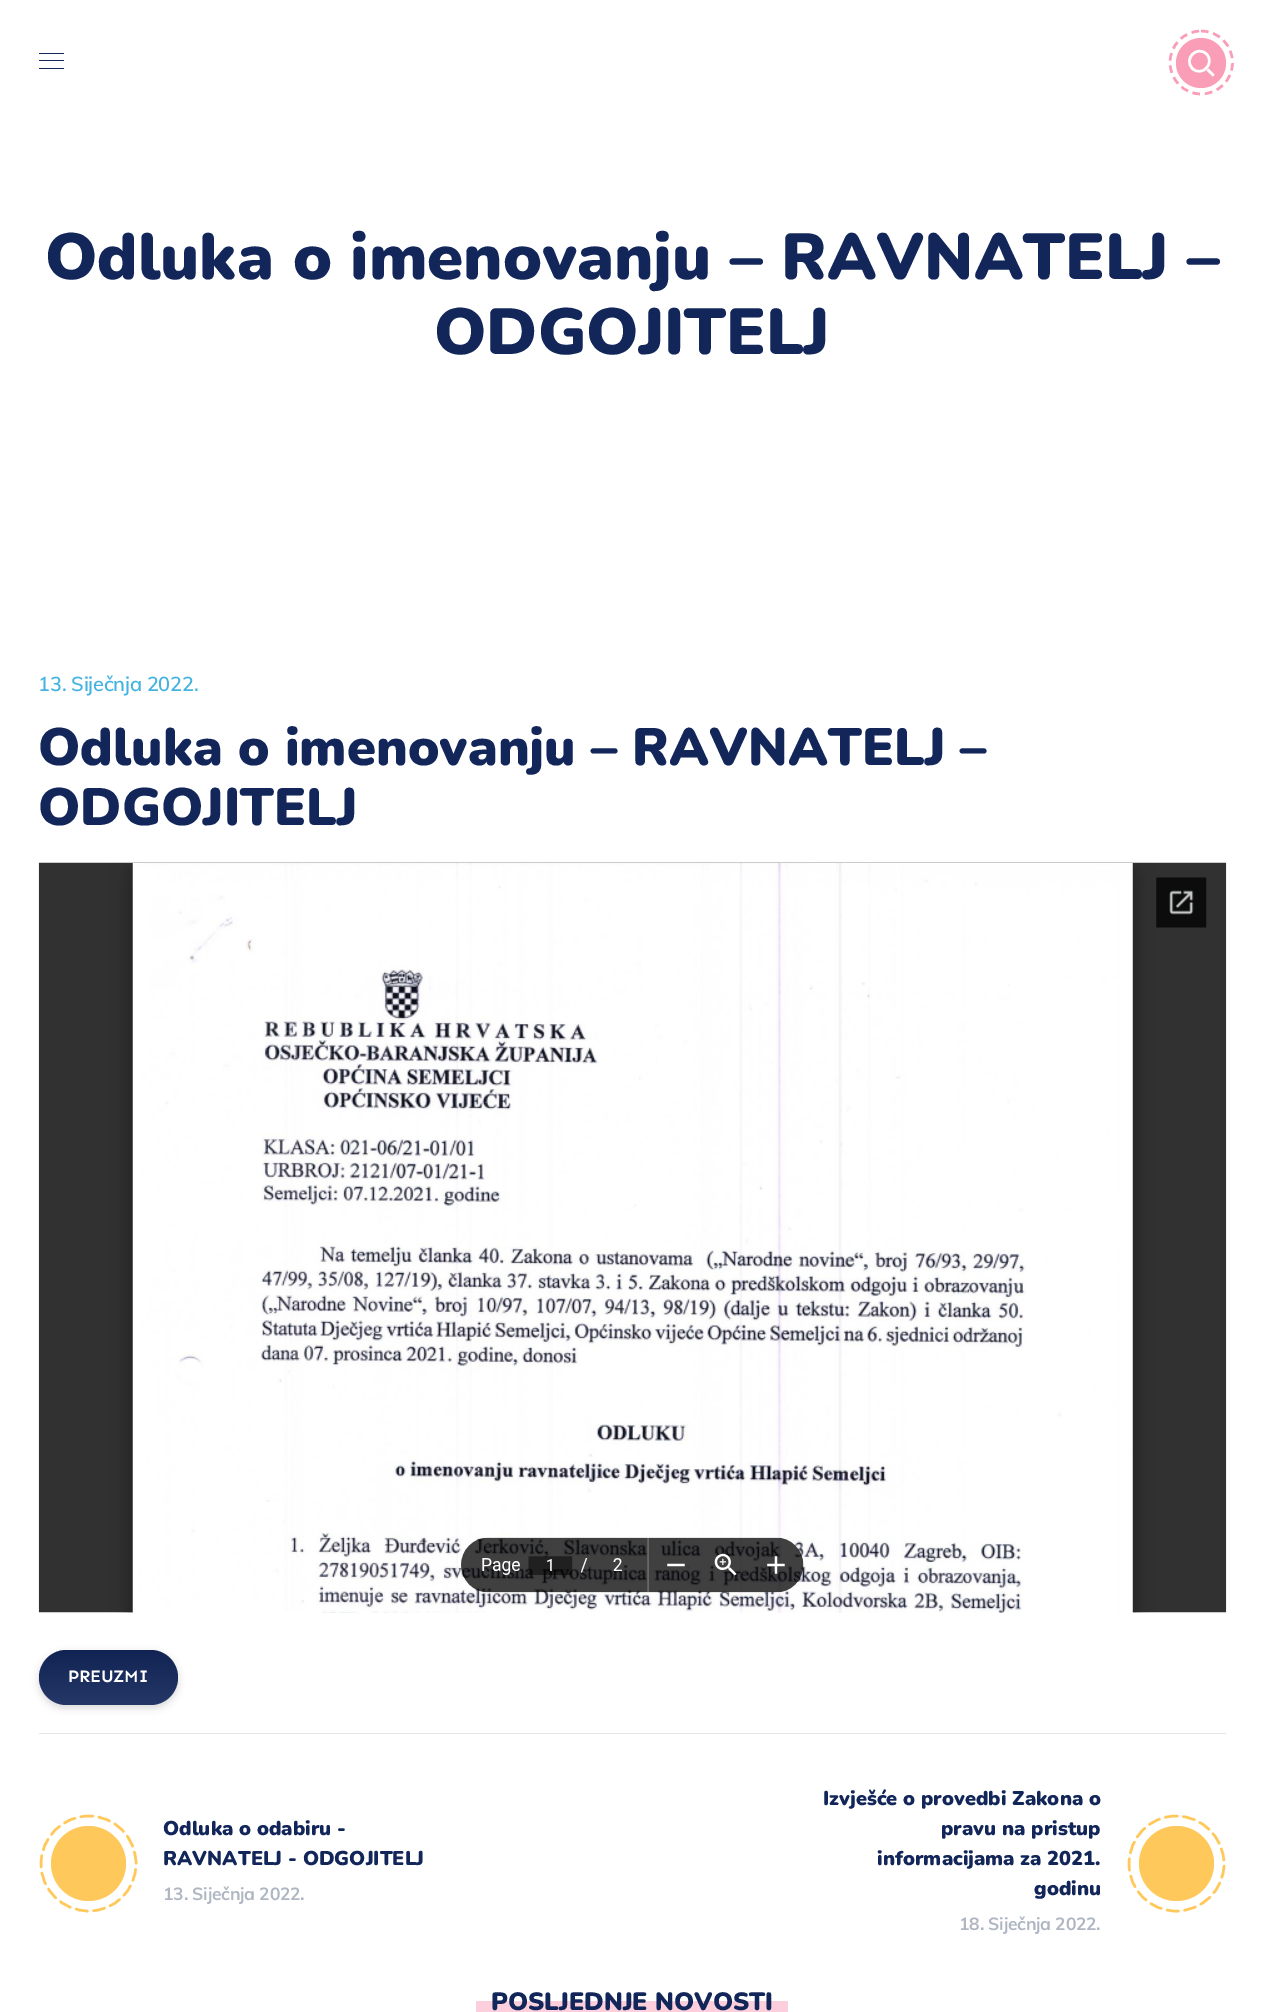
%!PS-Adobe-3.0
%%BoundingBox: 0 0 1263 2012
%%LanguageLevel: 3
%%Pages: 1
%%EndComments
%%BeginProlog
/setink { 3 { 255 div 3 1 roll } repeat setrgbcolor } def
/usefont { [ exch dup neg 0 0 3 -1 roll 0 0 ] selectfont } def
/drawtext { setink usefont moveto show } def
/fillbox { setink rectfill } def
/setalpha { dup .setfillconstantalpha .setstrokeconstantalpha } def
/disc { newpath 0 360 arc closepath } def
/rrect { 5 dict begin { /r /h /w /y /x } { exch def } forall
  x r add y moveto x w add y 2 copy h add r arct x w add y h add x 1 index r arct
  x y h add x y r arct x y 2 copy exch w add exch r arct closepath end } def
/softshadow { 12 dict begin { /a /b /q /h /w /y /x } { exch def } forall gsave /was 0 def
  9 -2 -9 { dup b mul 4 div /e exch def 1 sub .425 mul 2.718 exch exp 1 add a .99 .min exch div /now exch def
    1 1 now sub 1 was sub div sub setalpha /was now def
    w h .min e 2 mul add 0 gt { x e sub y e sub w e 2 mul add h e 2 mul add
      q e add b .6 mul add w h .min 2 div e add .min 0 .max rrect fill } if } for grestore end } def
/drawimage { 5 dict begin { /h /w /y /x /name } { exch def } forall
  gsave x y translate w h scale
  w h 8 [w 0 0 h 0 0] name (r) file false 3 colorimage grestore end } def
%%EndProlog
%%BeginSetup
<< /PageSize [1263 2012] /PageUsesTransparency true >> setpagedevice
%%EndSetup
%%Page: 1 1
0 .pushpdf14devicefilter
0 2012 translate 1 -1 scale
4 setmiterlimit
0 0 1263 2012 255 255 255 fillbox
39 53 25 1 18 38 90 fillbox
39 60 25 1 18 38 90 fillbox
39 68 25 1 18 38 90 fillbox
250 157 183 setink
1201 63 25 disc fill
2.5 setlinewidth
[7.5 5] 0 setdash
1201 31 moveto 1218.5 31 1232.5 45 1232.5 62.5 curveto 1232.5 80 1218.5 94 1201 94 curveto 1184 94 1170 80 1170 62.5 curveto 1170 45 1184 31 1201 31 curveto closepath stroke
255 255 255 setink
[] 0 setdash
1206.5 54 moveto 1215.5 63.5 1201.5 77.5 1192.5 68.5 curveto 1183 59 1197 45 1206.5 54 curveto closepath stroke
1206.5 70.5 moveto 1208.5 68.5 lineto 1214.5 74.5 lineto 1213 76.5 lineto closepath fill
(Odluka o imenovanju – RAVNATELJ –) 45 279 /Nunito-Black 65 18 38 90 drawtext
(ODGOJITELJ) 434 354 /Nunito-Black 65 18 38 90 drawtext
/Muli-SemiBold 20 usefont
69 179 223 setink
38 691 moveto -0.25 0 (13. Siječnja 2022.) ashow
(Odluka o imenovanju – RAVNATELJ –) 38 765 /Nunito-Black 52.5 18 38 90 drawtext
(ODGOJITELJ) 38 825 /Nunito-Black 52.5 18 38 90 drawtext
(assets/img1.rgb) 38 862 1189 751 drawimage
0 0 0 setink
39 1653 139 55 27.5 4 0.15 softshadow
18 38 90 setink
39 1650 139 55 27.5 rrect fill
0.08 setalpha
gsave 39 1650 139 55 27.5 rrect clip newpath
<< /ShadingType 2 /ColorSpace /DeviceRGB /Coords [108 1650 108 1705] /Extend [true true] /Function << /FunctionType 2 /Domain [0 1] /C0 [0 0 0] /C1 [1 1 1] /N 1 >> >> shfill grestore
/Sen-SemiBold 17.5 usefont
1 setalpha
255 255 255 setink
68 1682 moveto -0.25 0 (PREUZMI) ashow
39 1733 1187 1 229 229 229 fillbox
255 200 91 setink
1 setlinecap
[11.25 6.25] 7.5 setdash
89 1816 moveto 115 1816 136 1837.5 136 1864 curveto 136 1890 115 1911 89 1911 curveto 62.5 1911 41 1890 41 1864 curveto 41 1837.5 62.5 1816 89 1816 curveto closepath stroke
88.5 1863.5 37.5 disc fill
(Odluka o odabiru -) 163 1835 /Nunito-Black 20 18 38 90 drawtext
(RAVNATELJ - ODGOJITELJ) 163 1865 /Nunito-Black 20 18 38 90 drawtext
/Muli-Bold 17.5 usefont
174 182 194 setink
163 1900 moveto -0.25 0 (13. Siječnja 2022.) ashow
(Izvješće o provedbi Zakona o) 823 1805 /Nunito-Black 20 18 38 90 drawtext
(pravu na pristup) 941 1835 /Nunito-Black 20 18 38 90 drawtext
(informacijama za 2021.) 877 1865 /Nunito-Black 20 18 38 90 drawtext
(godinu) 1034 1895 /Nunito-Black 20 18 38 90 drawtext
/Muli-Bold 17.5 usefont
174 182 194 setink
959 1930 moveto -0.25 0 (18. Siječnja 2022.) ashow
255 200 91 setink
[11.25 6.25] 10 setdash
1176 1816 moveto 1202.5 1816 1224 1837.5 1224 1864 curveto 1224 1890 1202.5 1911 1176 1911 curveto 1150 1911 1129 1890 1129 1864 curveto 1129 1837.5 1150 1816 1176 1816 curveto closepath stroke
1176.5 1863.5 37.5 disc fill
476 2001 312 11 253 206 219 fillbox
(POSLJEDNJE NOVOSTI) 491 2010 /Nunito-Black 25 18 38 90 drawtext
.poppdf14devicefilter showpage
%%EOF
